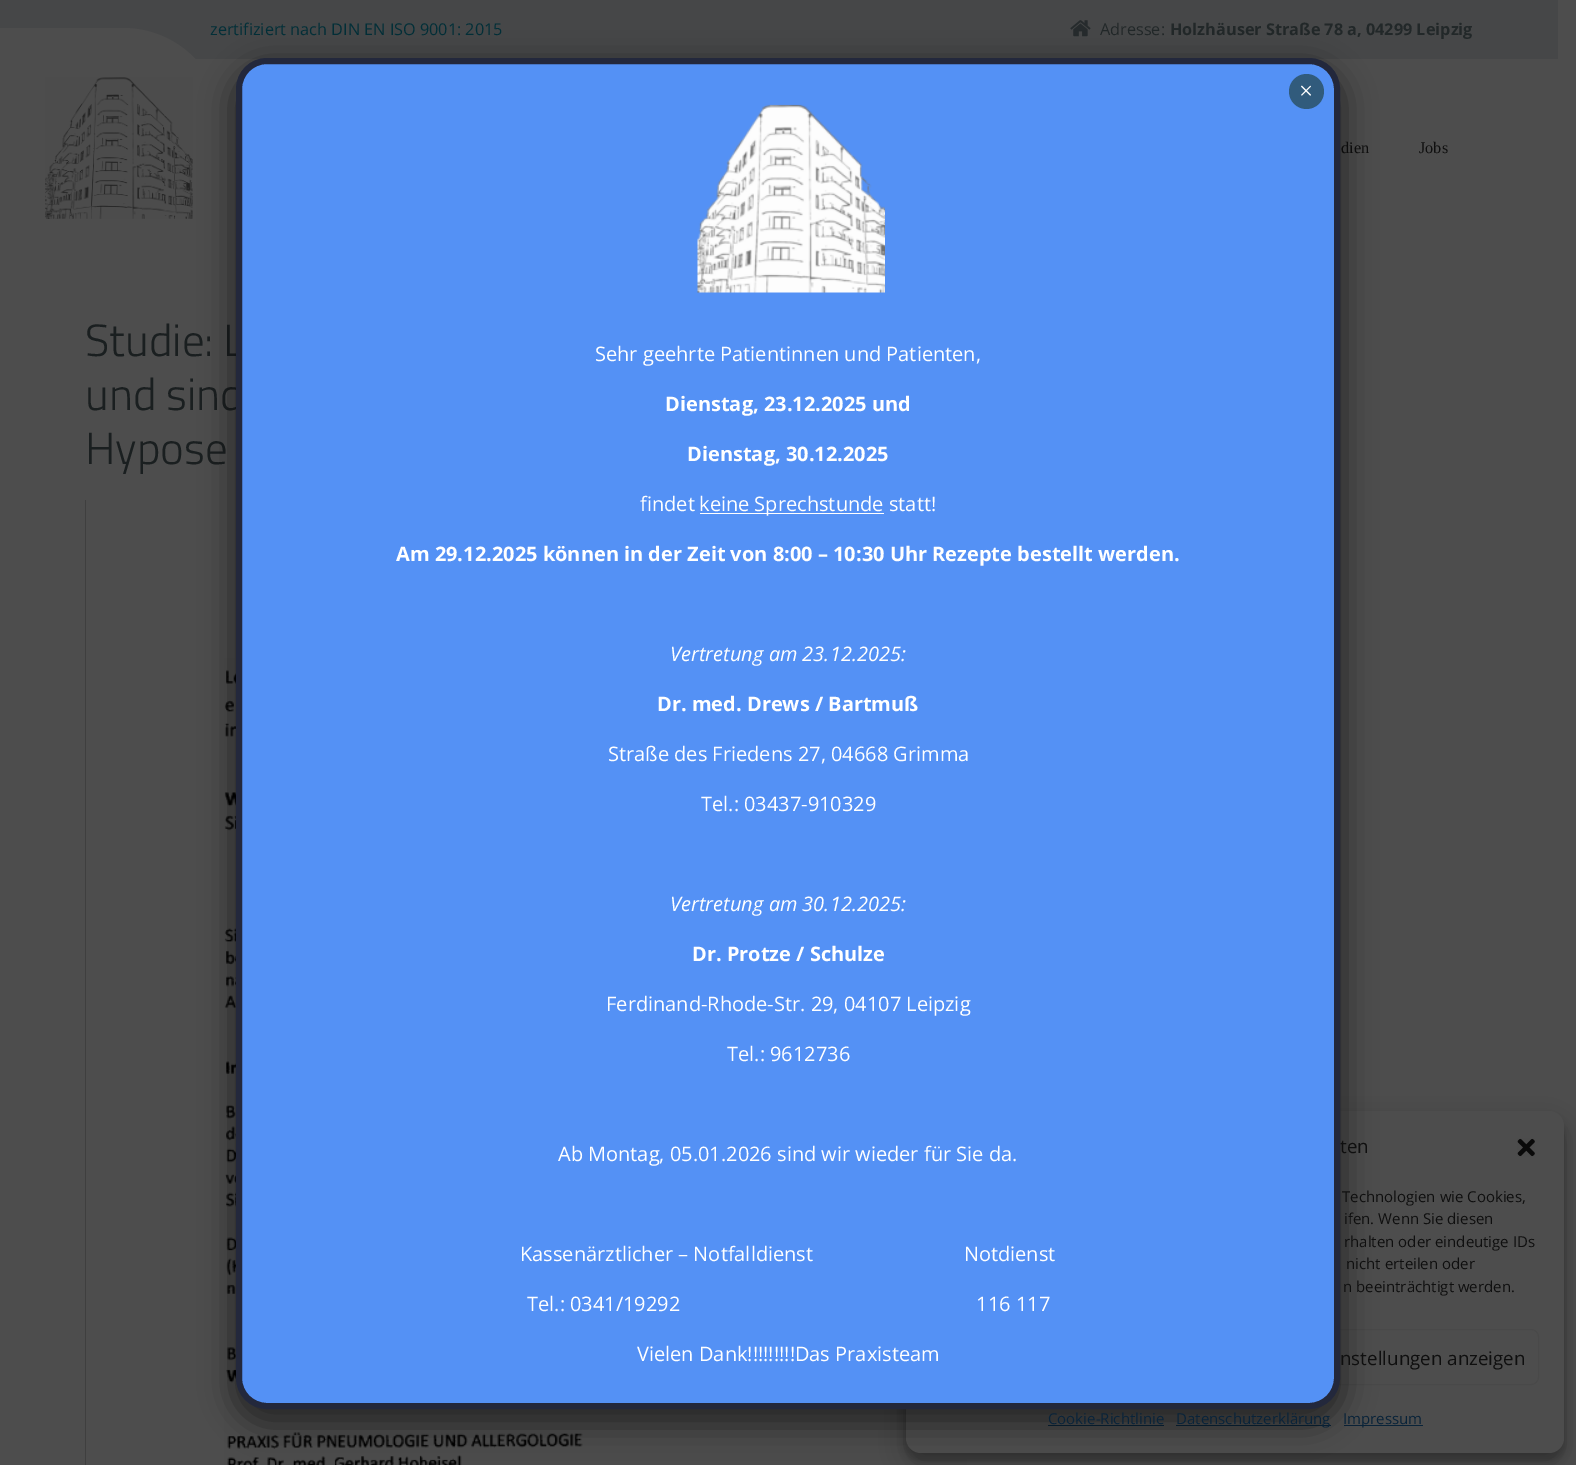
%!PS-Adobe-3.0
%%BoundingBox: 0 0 1576 1465
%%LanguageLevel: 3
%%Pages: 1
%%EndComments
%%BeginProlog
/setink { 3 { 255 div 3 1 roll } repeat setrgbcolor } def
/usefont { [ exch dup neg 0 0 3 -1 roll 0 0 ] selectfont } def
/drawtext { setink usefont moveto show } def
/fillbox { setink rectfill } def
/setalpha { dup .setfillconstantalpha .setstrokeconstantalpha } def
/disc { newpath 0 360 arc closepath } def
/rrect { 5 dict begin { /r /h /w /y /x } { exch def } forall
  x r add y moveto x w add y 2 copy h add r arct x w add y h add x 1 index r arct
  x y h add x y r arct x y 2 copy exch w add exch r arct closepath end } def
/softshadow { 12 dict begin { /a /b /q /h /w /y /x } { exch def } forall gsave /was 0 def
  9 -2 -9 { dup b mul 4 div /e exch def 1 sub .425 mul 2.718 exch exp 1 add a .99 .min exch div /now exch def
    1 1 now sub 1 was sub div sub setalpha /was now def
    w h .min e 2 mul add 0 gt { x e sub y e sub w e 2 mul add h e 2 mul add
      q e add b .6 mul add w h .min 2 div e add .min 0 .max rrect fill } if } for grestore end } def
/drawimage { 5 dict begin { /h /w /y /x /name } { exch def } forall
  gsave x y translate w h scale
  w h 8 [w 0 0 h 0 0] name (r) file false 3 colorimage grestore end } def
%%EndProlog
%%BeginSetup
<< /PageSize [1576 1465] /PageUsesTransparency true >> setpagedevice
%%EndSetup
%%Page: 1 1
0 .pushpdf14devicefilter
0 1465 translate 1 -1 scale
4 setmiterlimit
0 0 1576 1465 77 77 77 fillbox
0 0 1558 59 70 71 72 fillbox
(zertifiziert nach DIN EN ISO 9001: 2015) 210 35 /OpenSans-Regular 16.25 2 47 56 drawtext
(assets/img1.rgb) 1070 20 21 17 drawimage
(Adresse:) 1100 35 /OpenSans-Regular 16.25 34 40 41 drawtext
(Holzhäuser Straße 78 a, 04299 Leipzig) 1170 35 /OpenSans-Bold 16.25 34 40 41 drawtext
0 28 122 31 77 77 77 fillbox
123 128 100 disc fill
(assets/img2.rgb) 45 77 148 142 drawimage
(dien) 1341 153 /LiberationSerif-Regular 16.25 15 15 15 drawtext
(Jobs) 1419 153 /LiberationSerif-Regular 16.25 15 15 15 drawtext
(Studie: L) 85 356 /TitilliumWeb-Light 45 26 31 32 drawtext
(und sind) 85 410 /TitilliumWeb-Light 45 26 31 32 drawtext
(Hypose) 85 464 /TitilliumWeb-Light 45 26 31 32 drawtext
85 500 1 965 63 63 63 fillbox
(assets/img3.rgb) 224 658 743 807 drawimage
0 0 0 setink
906 1119 658 341 15 4 0.23 softshadow
906 1124 658 341 15 12.5 0.19 softshadow
77 77 77 setink
906 1111 658 342 15 rrect fill
73 73 73 setink
1280.5 1329.5 258 55 7.5 rrect stroke
1048 1425 116 1 9 35 57 fillbox
1176 1425 155 1 9 35 57 fillbox
1344 1425 79 1 9 35 57 fillbox
2 2 2 setink
231 65 1114 1361 36 15.5 0.5 softshadow
(ten) 1340 1153 /OpenSans-Regular 18.75 15 15 15 drawtext
84 145 245 setink
239 61 1098 1345 28 rrect gsave fill grestore
35 40 60 setink
6 setlinewidth
stroke
49 91 124 setink
1306.5 91.5 17.5 disc fill
(×) 1299 99 /LiberationSerif-Regular 25 255 255 255 drawtext
(assets/img4.rgb) 697 104 188 189 drawimage
(Sehr geehrte Patientinnen und Patienten,) 595 361 /OpenSans-Regular 20 255 255 255 drawtext
(Dienstag, 23.12.2025 und) 665 411 /OpenSans-Bold 20 255 255 255 drawtext
(Dienstag, 30.12.2025) 687 461 /OpenSans-Bold 20 255 255 255 drawtext
(findet) 640 511 /OpenSans-Regular 20 255 255 255 drawtext
700 513 184 1 255 255 255 fillbox
(keine Sprechstunde statt!) 699 511 /OpenSans-Regular 20 255 255 255 drawtext
(Am 29.12.2025 können in der Zeit von 8:00 – 10:30 Uhr Rezepte bestellt werden.) 396 561 /OpenSans-Bold 20 255 255 255 drawtext
(Vertretung am 23.12.2025:) 670 661 /OpenSans-Italic 20 255 255 255 drawtext
(Dr. med. Drews / Bartmuß) 657 711 /OpenSans-Bold 20 255 255 255 drawtext
(Straße des Friedens 27, 04668 Grimma) 608 761 /OpenSans-Regular 20 255 255 255 drawtext
(Tel.: 03437-910329) 701 811 /OpenSans-Regular 20 255 255 255 drawtext
(Vertretung am 30.12.2025:) 670 911 /OpenSans-Italic 20 255 255 255 drawtext
(Dr. Protze / Schulze) 692 961 /OpenSans-Bold 20 255 255 255 drawtext
(Ferdinand-Rhode-Str. 29, 04107 Leipzig) 606 1011 /OpenSans-Regular 20 255 255 255 drawtext
(Tel.: 9612736) 727 1061 /OpenSans-Regular 20 255 255 255 drawtext
(Ab Montag, 05.01.2026 sind wir wieder für Sie da.) 558 1161 /OpenSans-Regular 20 255 255 255 drawtext
(Kassenärztlicher – Notfalldienst                             Notdienst) 520 1261 /OpenSans-Regular 20 255 255 255 drawtext
(Tel.: 0341/19292                                                         116 117) 527 1311 /OpenSans-Regular 20 255 255 255 drawtext
(Vielen Dank!!!!!!!!!Das Praxisteam) 637 1361 /OpenSans-Regular 20 255 255 255 drawtext
(assets/img5.rgb) 1517 1138 18 19 drawimage
(Technologien wie Cookies,) 1342 1202 /OpenSans-Regular 15 15 15 15 drawtext
(ifen. Wenn Sie diesen) 1344 1224 /OpenSans-Regular 15 15 15 15 drawtext
(rhalten oder eindeutige IDs) 1344 1247 /OpenSans-Regular 15 15 15 15 drawtext
(nicht erteilen oder) 1346 1269 /OpenSans-Regular 15 15 15 15 drawtext
(n beeinträchtigt werden.) 1343 1292 /OpenSans-Regular 15 15 15 15 drawtext
(nstellungen anzeigen) 1340 1365 /OpenSans-Regular 18.75 15 15 15 drawtext
(Cookie-Richtlinie) 1048 1424 /OpenSans-Regular 15 9 35 57 drawtext
(Datenschutzerklärung) 1176 1424 /OpenSans-Regular 15 9 35 57 drawtext
(Impressum) 1343 1424 /OpenSans-Regular 15 9 35 57 drawtext
.poppdf14devicefilter showpage
%%EOF
